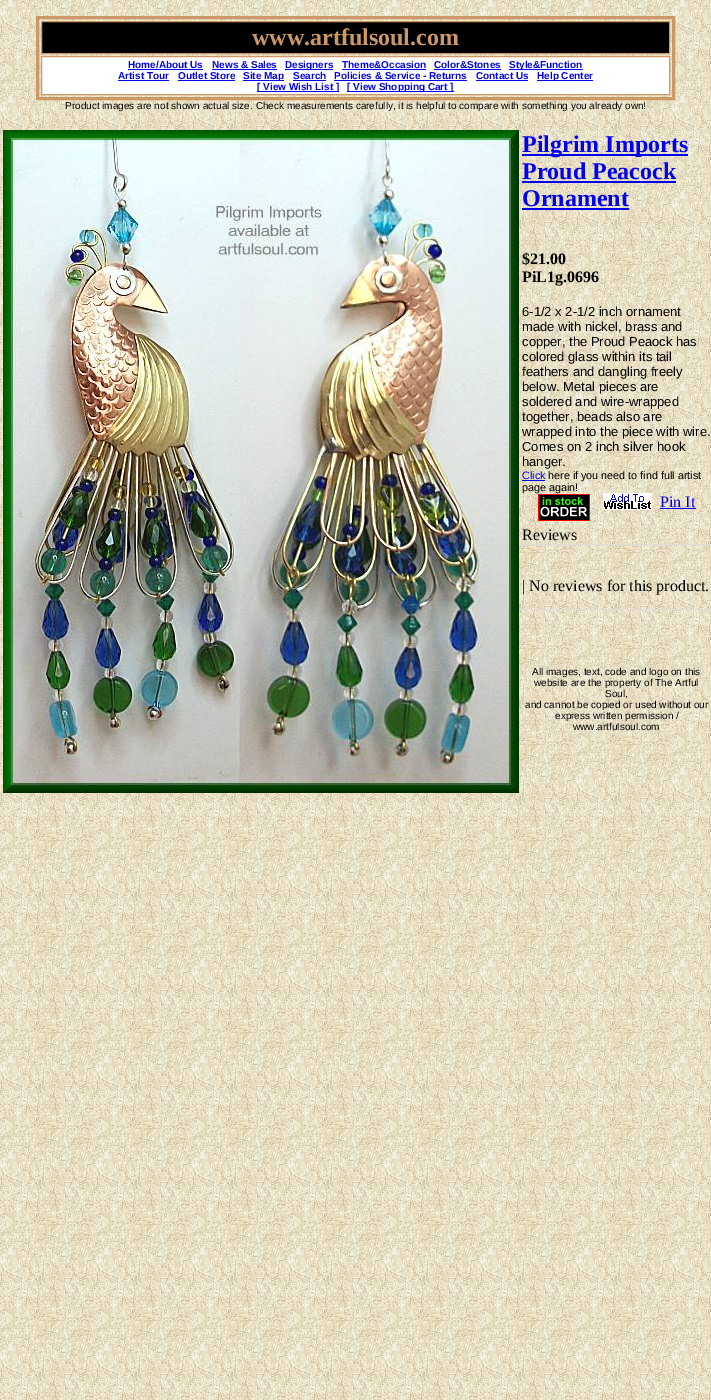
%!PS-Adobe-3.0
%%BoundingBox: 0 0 711 1400
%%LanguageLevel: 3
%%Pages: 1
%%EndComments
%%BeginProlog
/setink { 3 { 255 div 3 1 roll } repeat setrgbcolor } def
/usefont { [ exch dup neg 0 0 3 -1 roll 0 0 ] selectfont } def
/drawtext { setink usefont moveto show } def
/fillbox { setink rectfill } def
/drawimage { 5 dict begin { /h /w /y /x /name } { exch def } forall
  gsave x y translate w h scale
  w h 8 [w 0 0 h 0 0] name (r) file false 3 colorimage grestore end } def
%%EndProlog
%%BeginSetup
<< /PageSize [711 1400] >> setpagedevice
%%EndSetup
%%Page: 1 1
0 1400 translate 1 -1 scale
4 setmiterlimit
0 0 711 1400 255 255 255 fillbox
(assets/img1.rgb) 0 0 711 1400 drawimage
204 153 102 setink
3 setlinewidth
37.5 17.5 636 81 rectstroke
0 0 0 setink
41.5 21.5 moveto 669.5 21.5 lineto 669.5 53.5 lineto 41.5 53.5 lineto closepath gsave fill grestore
204 153 102 setink
1 setlinewidth
stroke
(www.artfulsoul.com) 252 45 /LiberationSerif-Bold 24 204 153 102 drawtext
255 255 255 setink
41.5 56.5 moveto 669.5 56.5 lineto 669.5 94.5 lineto 41.5 94.5 lineto closepath gsave fill grestore
204 153 102 setink
stroke
(Home/About Us) 128 68 /LiberationSans-Bold 10 0 0 238 drawtext
128 69 75 1 0 0 238 fillbox
(News & Sales) 212 68 /LiberationSans-Bold 10 0 0 238 drawtext
212 69 65 1 0 0 238 fillbox
285 69 48 1 0 0 238 fillbox
(Designers) 285 68 /LiberationSans-Bold 10 0 0 238 drawtext
(Theme&Occasion) 342 68 /LiberationSans-Bold 10 0 0 238 drawtext
342 69 84 1 0 0 238 fillbox
(Color&Stones) 434 68 /LiberationSans-Bold 10 0 0 238 drawtext
434 69 67 1 0 0 238 fillbox
509 69 74 1 0 0 238 fillbox
(Style&Function) 509 68 /LiberationSans-Bold 10 0 0 238 drawtext
(Artist Tour) 118 79 /LiberationSans-Bold 10 0 0 238 drawtext
118 80 51 1 0 0 238 fillbox
(Outlet Store) 178 79 /LiberationSans-Bold 10 0 0 238 drawtext
178 80 57 1 0 0 238 fillbox
243 80 41 1 0 0 238 fillbox
(Site Map) 243 79 /LiberationSans-Bold 10 0 0 238 drawtext
(Search) 293 79 /LiberationSans-Bold 10 0 0 238 drawtext
293 80 33 1 0 0 238 fillbox
(Policies & Service - Returns) 334 79 /LiberationSans-Bold 10 0 0 238 drawtext
334 80 133 1 0 0 238 fillbox
(Contact Us) 476 79 /LiberationSans-Bold 10 0 0 238 drawtext
476 80 52 1 0 0 238 fillbox
537 80 56 1 0 0 238 fillbox
(Help Center) 537 79 /LiberationSans-Bold 10 0 0 238 drawtext
257 91 82 1 0 0 238 fillbox
([ View Wish List ]) 257 90 /LiberationSans-Bold 10 0 0 238 drawtext
347 91 107 1 0 0 238 fillbox
([ View Shopping Cart ]) 347 90 /LiberationSans-Bold 10 0 0 238 drawtext
(Product images are not shown actual size. Check measurements carefully, it is helpful to compare with something you already own!) 65 109 /LiberationSans-Regular 10 0 0 0 drawtext
0 544 711 1 221 221 221 fillbox
0 609 711 1 221 221 221 fillbox
(assets/img2.rgb) 3 130 516 663 drawimage
522 154 166 2 0 0 238 fillbox
(Pilgrim Imports) 522 152 /LiberationSerif-Bold 24 0 0 238 drawtext
(Proud Peacock) 522 179 /LiberationSerif-Bold 24 0 0 238 drawtext
522 181 154 2 0 0 238 fillbox
(Ornament) 522 206 /LiberationSerif-Bold 24 0 0 238 drawtext
522 208 107 2 0 0 238 fillbox
($21.00) 522 264 /LiberationSerif-Bold 16 0 0 0 drawtext
(PiL1g.0696) 522 282 /LiberationSerif-Bold 16 0 0 0 drawtext
(6-1/2 x 2-1/2 inch ornament) 522 316 /LiberationSans-Regular 13 0 0 0 drawtext
(made with nickel, brass and) 522 331 /LiberationSans-Regular 13 0 0 0 drawtext
(copper, the Proud Peaock has) 522 346 /LiberationSans-Regular 13 0 0 0 drawtext
(colored glass within its tail) 522 361 /LiberationSans-Regular 13 0 0 0 drawtext
(feathers and dangling freely) 522 376 /LiberationSans-Regular 13 0 0 0 drawtext
(below. Metal pieces are) 522 391 /LiberationSans-Regular 13 0 0 0 drawtext
(soldered and wire-wrapped) 522 406 /LiberationSans-Regular 13 0 0 0 drawtext
(together, beads also are) 522 421 /LiberationSans-Regular 13 0 0 0 drawtext
(wrapped into the piece with wire.) 522 436 /LiberationSans-Regular 13 0 0 0 drawtext
(Comes on 2 inch silver hook) 522 451 /LiberationSans-Regular 13 0 0 0 drawtext
(hanger.) 522 466 /LiberationSans-Regular 13 0 0 0 drawtext
(Click) 522 479 /LiberationSans-Regular 10.8 0 0 238 drawtext
522 480 23 1 0 0 238 fillbox
(here if you need to find full artist) 548 479 /LiberationSans-Regular 10.8 0 0 0 drawtext
(page again!) 522 491 /LiberationSans-Regular 10.8 0 0 0 drawtext
(assets/img3.rgb) 538 494 52 27 drawimage
(assets/img4.rgb) 603 493 49 17 drawimage
(Pin It) 660 507 /LiberationSerif-Regular 16 0 0 238 drawtext
660 508 36 1 0 0 238 fillbox
(Reviews) 522 540 /LiberationSerif-Regular 16 0 0 0 drawtext
(| No reviews for this product.) 522 591 /LiberationSerif-Regular 16 0 0 0 drawtext
(All images, text, code and logo on this) 532 675 /LiberationSans-Regular 10 0 0 0 drawtext
(website are the property of The Artful) 534 686 /LiberationSans-Regular 10 0 0 0 drawtext
(Soul,) 605 697 /LiberationSans-Regular 10 0 0 0 drawtext
(and cannot be copied or used without our) 525 708 /LiberationSans-Regular 10 0 0 0 drawtext
(express written permission /) 555 719 /LiberationSans-Regular 10 0 0 0 drawtext
(www.artfulsoul.com) 573 730 /LiberationSans-Regular 10 0 0 0 drawtext
showpage
%%EOF
